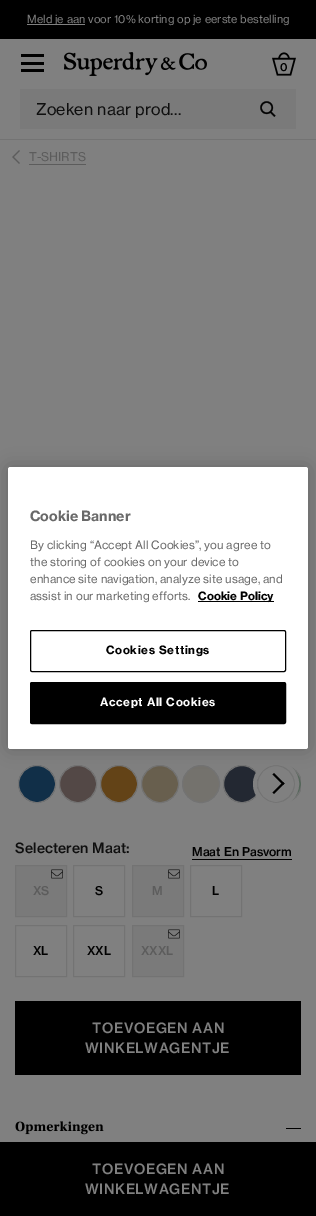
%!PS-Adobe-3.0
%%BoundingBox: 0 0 316 1216
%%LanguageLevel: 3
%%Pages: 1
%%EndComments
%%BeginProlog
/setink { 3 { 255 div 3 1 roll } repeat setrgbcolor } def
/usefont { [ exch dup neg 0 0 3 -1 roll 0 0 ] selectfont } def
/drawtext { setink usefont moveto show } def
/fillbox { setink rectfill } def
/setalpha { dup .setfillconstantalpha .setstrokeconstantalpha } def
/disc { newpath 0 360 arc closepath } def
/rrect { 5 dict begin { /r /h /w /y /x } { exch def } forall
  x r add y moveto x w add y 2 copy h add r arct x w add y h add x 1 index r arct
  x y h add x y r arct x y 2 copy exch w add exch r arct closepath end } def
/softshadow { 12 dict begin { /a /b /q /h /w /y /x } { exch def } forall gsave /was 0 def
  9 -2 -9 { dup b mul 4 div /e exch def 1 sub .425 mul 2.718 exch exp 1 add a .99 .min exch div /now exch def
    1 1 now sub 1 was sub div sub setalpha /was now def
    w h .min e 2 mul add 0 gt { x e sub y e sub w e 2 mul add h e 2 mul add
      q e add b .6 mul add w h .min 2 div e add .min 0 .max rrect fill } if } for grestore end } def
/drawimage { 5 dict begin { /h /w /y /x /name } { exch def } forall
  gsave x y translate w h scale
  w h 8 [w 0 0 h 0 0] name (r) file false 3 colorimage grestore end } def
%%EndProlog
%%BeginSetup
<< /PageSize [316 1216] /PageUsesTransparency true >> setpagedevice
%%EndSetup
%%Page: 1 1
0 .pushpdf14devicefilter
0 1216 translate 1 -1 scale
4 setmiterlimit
0 0 316 1216 128 128 128 fillbox
0 0 316 39 0 0 0 fillbox
27 24 58 1 128 128 128 fillbox
(Meld je aan voor 10% korting op je eerste bestelling) 27 23 /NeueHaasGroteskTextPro-Regular 11 128 128 128 drawtext
21 54 23 3 0 0 0 fillbox
21 62 23 3 0 0 0 fillbox
21 69 23 3 0 0 0 fillbox
(assets/img1.rgb) 64 52 143 24 drawimage
(assets/img2.rgb) 272 52 24 24 drawimage
(0) 280 71 /NeueHaasGroteskTextPro-Medium 11 0 0 0 drawtext
20 89 276 40 122 122 122 fillbox
/NeueHaasGroteskTextPro-Regular 16 usefont
15 15 15 setink
36 115 moveto 0.1 0 (Zoeken naar prod…) ashow
(assets/img3.rgb) 260 101 16 16 drawimage
0 139 316 1 115 115 115 fillbox
(assets/img4.rgb) 12 150 8 14 drawimage
(T-SHIRTS) 29 161 /NeueHaasGroteskTextPro-Regular 12 92 92 92 drawtext
29 164 57 1 92 92 92 fillbox
35 40 50 setink
242 784 18.5 disc gsave fill grestore
115 115 115 setink
stroke
gsave
15 760 286 56 rectclip
85 102 90 setink
283 784 18.5 disc gsave fill grestore
115 115 115 setink
stroke
grestore
128 128 128 setink
276 784 18.5 disc gsave fill grestore
115 115 115 setink
stroke
128 128 128 setink
4 setlinewidth
276 784 21 disc stroke
0 0 0 setink
274 773 moveto 284.5 783.5 lineto 283 785 lineto 272.5 774.5 lineto closepath fill
283 782 moveto 284.5 783.5 lineto 274 794 lineto 272.5 792.5 lineto closepath fill
17 47 72 setink
37 784 18.5 disc gsave fill grestore
115 115 115 setink
1 setlinewidth
stroke
83 72 70 setink
78 784 18.5 disc gsave fill grestore
115 115 115 setink
stroke
99 67 23 setink
119 784 18.5 disc gsave fill grestore
115 115 115 setink
stroke
104 95 78 setink
160 784 18.5 disc gsave fill grestore
115 115 115 setink
stroke
116 114 109 setink
201 784 18.5 disc gsave fill grestore
115 115 115 setink
stroke
/NeueHaasGroteskTextPro-Medium 14 usefont
15 15 15 setink
15 853 moveto 0.1 0 (Selecteren Maat:) ashow
(Maat En Pasvorm) 192 856 /NeueHaasGroteskTextPro-Medium 12 0 0 0 drawtext
192 859 100 1 0 0 0 fillbox
122 122 122 setink
15.5 865.5 moveto 66.5 865.5 lineto 66.5 916.5 lineto 15.5 916.5 lineto closepath gsave fill grestore
115 115 115 setink
stroke
(assets/img5.rgb) 51 869 12 10 drawimage
(XS) 33 895 /NeueHaasGroteskTextPro-Medium 12 92 92 92 drawtext
115 115 115 setink
73.5 865.5 51 51 rectstroke
(S) 95 895 /NeueHaasGroteskTextPro-Medium 12 0 0 0 drawtext
122 122 122 setink
132.5 865.5 moveto 183.5 865.5 lineto 183.5 916.5 lineto 132.5 916.5 lineto closepath gsave fill grestore
115 115 115 setink
stroke
(assets/img5.rgb) 168 869 12 10 drawimage
(M) 152 895 /NeueHaasGroteskTextPro-Medium 12 92 92 92 drawtext
115 115 115 setink
190.5 865.5 51 51 rectstroke
(L) 212 895 /NeueHaasGroteskTextPro-Medium 12 0 0 0 drawtext
115 115 115 setink
15.5 925.5 51 51 rectstroke
(XL) 33 955 /NeueHaasGroteskTextPro-Medium 12 0 0 0 drawtext
115 115 115 setink
73.5 925.5 51 51 rectstroke
(XXL) 87 955 /NeueHaasGroteskTextPro-Medium 12 0 0 0 drawtext
122 122 122 setink
132.5 925.5 moveto 183.5 925.5 lineto 183.5 976.5 lineto 132.5 976.5 lineto closepath gsave fill grestore
115 115 115 setink
stroke
(assets/img5.rgb) 168 929 12 10 drawimage
(XXXL) 141 955 /NeueHaasGroteskTextPro-Medium 12 92 92 92 drawtext
15 1001 286 74 0 0 0 fillbox
/NeueHaasGroteskTextPro-Medium 14 usefont
128 128 128 setink
92 1033 moveto 0.6 0 (TOEVOEGEN AAN) ashow
85 1053 moveto 0.6 0 (WINKELWAGENTJE) ashow
(assets/img6.rgb) 15 1121 89 14 drawimage
286 1128 15 1 0 0 0 fillbox
0 1142 316 74 0 0 0 fillbox
128 128 128 setink
92 1174 moveto 0.6 0 (TOEVOEGEN AAN) ashow
85 1194 moveto 0.6 0 (WINKELWAGENTJE) ashow
0 0 0 setink
8 467 300 282 2.5 9 0.2 softshadow
255 255 255 setink
8 467 300 282 2.5 rrect fill
(Cookie Banner) 30 521 /NeueHaasGroteskTextPro-Bold 14 105 105 105 drawtext
(By clicking “Accept All Cookies”, you agree to) 30 549 /NeueHaasGroteskTextPro-Regular 11.4 105 105 105 drawtext
(the storing of cookies on your device to) 30 566 /NeueHaasGroteskTextPro-Regular 11.4 105 105 105 drawtext
(enhance site navigation, analyze site usage, and) 30 583 /NeueHaasGroteskTextPro-Regular 11.4 105 105 105 drawtext
(assist in our marketing efforts.) 30 600 /NeueHaasGroteskTextPro-Regular 11.4 105 105 105 drawtext
198 601 76 1 0 0 0 fillbox
(Cookie Policy) 198 600 /NeueHaasGroteskTextPro-Bold 11.4 0 0 0 drawtext
30.5 630.5 255 41 1.5 rrect stroke
106 654 moveto 0.6 0 (Cookies Settings) ashow
30.5 682.5 255 41 1.5 rrect gsave fill grestore
stroke
255 255 255 setink
100 706 moveto 0.6 0 (Accept All Cookies) ashow
.poppdf14devicefilter showpage
%%EOF
